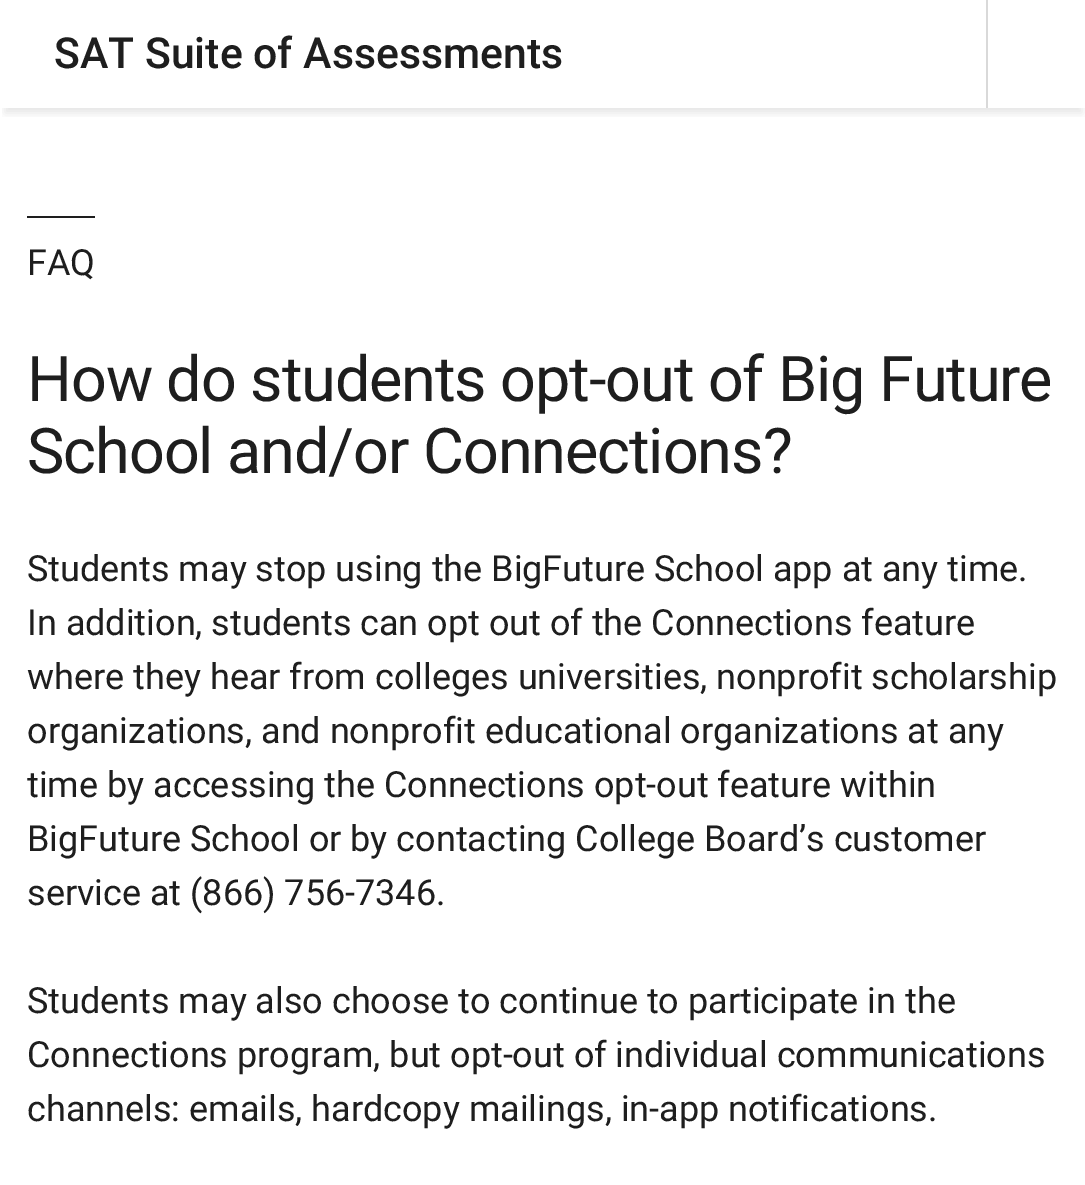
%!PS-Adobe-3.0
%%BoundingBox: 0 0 1085 1185
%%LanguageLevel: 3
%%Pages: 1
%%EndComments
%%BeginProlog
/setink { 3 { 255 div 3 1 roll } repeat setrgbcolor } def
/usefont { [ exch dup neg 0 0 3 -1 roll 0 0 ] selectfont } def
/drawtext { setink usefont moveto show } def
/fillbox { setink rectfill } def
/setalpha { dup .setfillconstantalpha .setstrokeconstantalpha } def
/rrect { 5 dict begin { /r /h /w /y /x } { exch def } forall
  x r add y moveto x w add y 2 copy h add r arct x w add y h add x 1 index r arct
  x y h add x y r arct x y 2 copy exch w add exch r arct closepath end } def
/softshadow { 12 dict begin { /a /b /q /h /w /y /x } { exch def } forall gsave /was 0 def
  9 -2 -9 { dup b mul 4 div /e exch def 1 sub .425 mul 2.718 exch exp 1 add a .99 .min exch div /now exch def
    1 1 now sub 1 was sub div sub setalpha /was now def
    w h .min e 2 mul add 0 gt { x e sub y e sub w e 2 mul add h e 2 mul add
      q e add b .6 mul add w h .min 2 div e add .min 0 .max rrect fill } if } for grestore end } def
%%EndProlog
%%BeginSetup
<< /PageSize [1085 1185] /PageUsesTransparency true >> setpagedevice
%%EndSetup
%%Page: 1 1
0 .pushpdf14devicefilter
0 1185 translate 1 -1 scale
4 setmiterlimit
0 0 1085 1185 255 255 255 fillbox
gsave
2 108 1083 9 rectclip
0 0 0 setink
5 14 1077 99 0 4.5 0.1 softshadow
grestore
(SAT Suite of Assessments) 54 68 /Roboto-Medium 42.75 30 30 30 drawtext
986 0 2 108 217 217 217 fillbox
27 216 68 2 30 30 30 fillbox
(FAQ) 27 275 /Roboto-Regular 36 30 30 30 drawtext
/Roboto-Regular 63 usefont
27 401 moveto -1.1 0 (How do students opt-out of Big Future) ashow
27 473 moveto -1.1 0 (School and/or Connections?) ashow
(Students may stop using the BigFuture School app at any time.) 27 581 /Roboto-Regular 36 30 30 30 drawtext
(In addition, students can opt out of the Connections feature) 27 635 /Roboto-Regular 36 30 30 30 drawtext
(where they hear from colleges universities, nonprofit scholarship) 27 689 /Roboto-Regular 36 30 30 30 drawtext
(organizations, and nonprofit educational organizations at any) 27 743 /Roboto-Regular 36 30 30 30 drawtext
(time by accessing the Connections opt-out feature within) 27 797 /Roboto-Regular 36 30 30 30 drawtext
(BigFuture School or by contacting College Board’s customer) 27 851 /Roboto-Regular 36 30 30 30 drawtext
(service at \(866\) 756-7346.) 27 905 /Roboto-Regular 36 30 30 30 drawtext
(Students may also choose to continue to participate in the) 27 1013 /Roboto-Regular 36 30 30 30 drawtext
(Connections program, but opt-out of individual communications) 27 1067 /Roboto-Regular 36 30 30 30 drawtext
(channels: emails, hardcopy mailings, in-app notifications.) 27 1121 /Roboto-Regular 36 30 30 30 drawtext
.poppdf14devicefilter showpage
%%EOF
